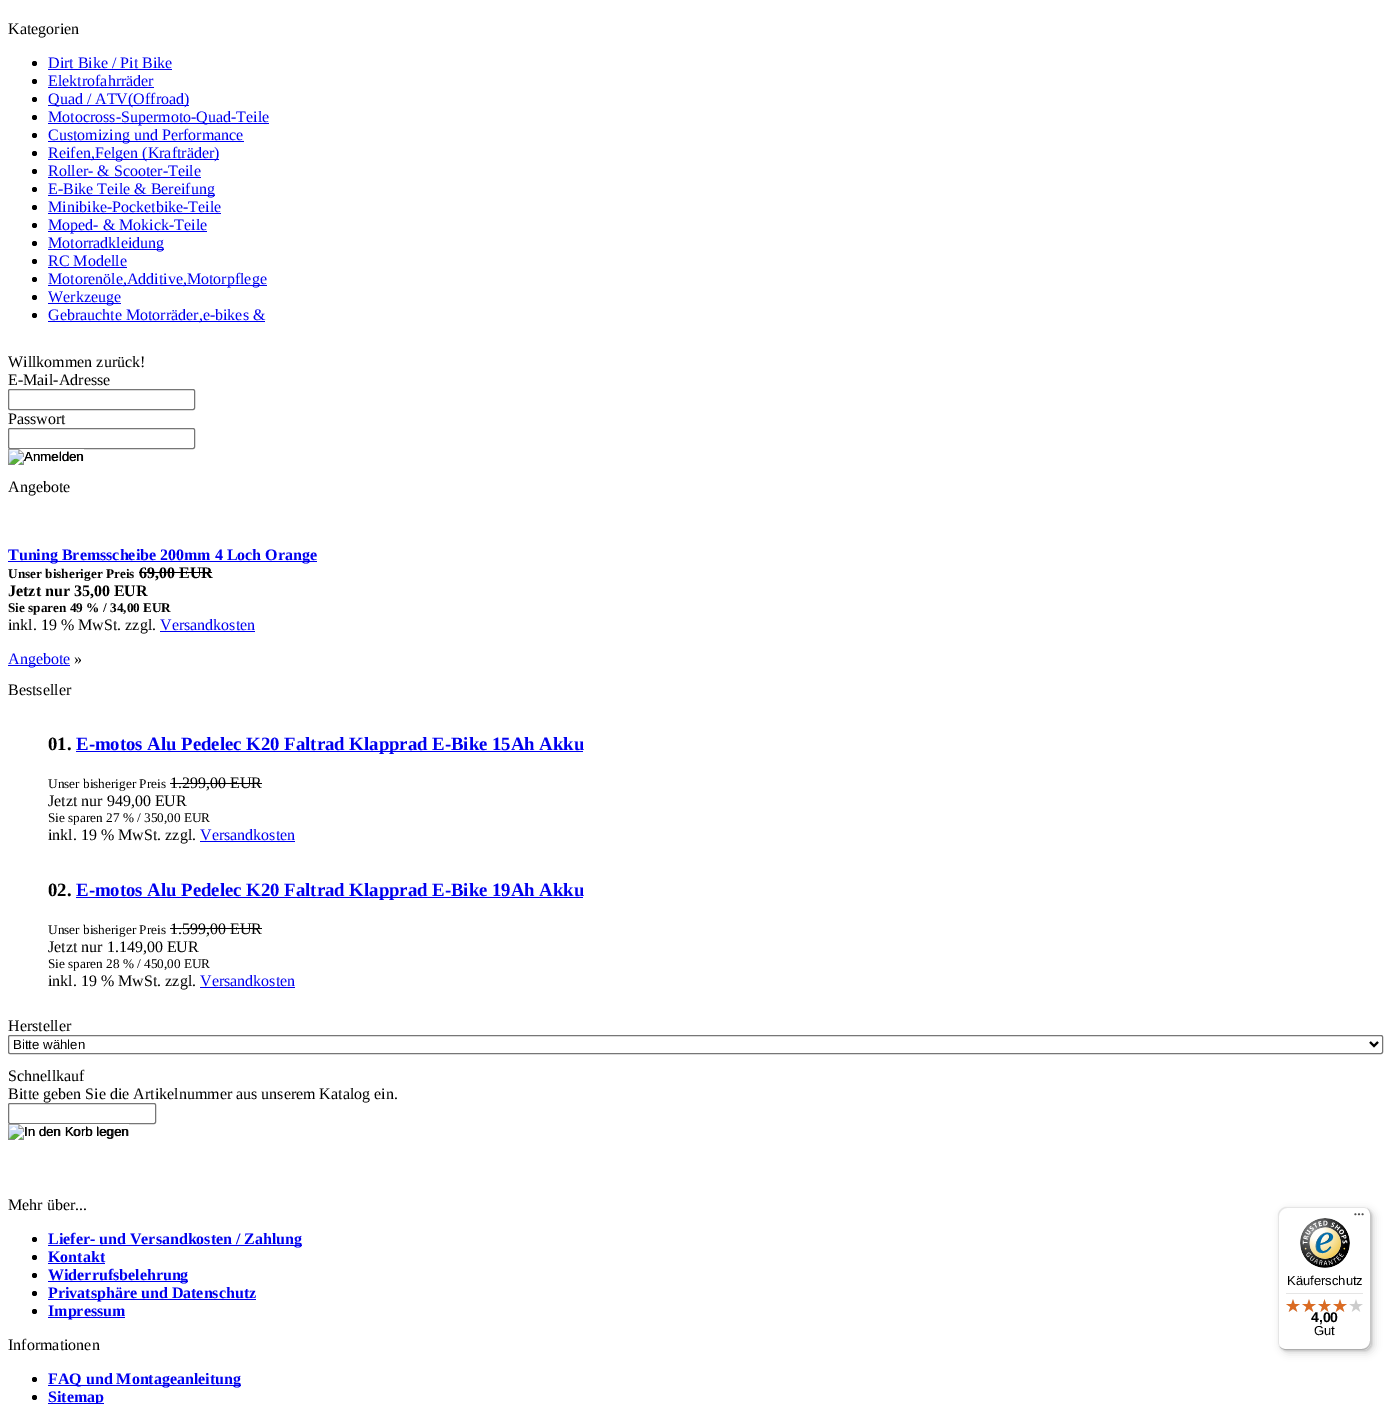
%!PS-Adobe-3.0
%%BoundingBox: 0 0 1391 1404
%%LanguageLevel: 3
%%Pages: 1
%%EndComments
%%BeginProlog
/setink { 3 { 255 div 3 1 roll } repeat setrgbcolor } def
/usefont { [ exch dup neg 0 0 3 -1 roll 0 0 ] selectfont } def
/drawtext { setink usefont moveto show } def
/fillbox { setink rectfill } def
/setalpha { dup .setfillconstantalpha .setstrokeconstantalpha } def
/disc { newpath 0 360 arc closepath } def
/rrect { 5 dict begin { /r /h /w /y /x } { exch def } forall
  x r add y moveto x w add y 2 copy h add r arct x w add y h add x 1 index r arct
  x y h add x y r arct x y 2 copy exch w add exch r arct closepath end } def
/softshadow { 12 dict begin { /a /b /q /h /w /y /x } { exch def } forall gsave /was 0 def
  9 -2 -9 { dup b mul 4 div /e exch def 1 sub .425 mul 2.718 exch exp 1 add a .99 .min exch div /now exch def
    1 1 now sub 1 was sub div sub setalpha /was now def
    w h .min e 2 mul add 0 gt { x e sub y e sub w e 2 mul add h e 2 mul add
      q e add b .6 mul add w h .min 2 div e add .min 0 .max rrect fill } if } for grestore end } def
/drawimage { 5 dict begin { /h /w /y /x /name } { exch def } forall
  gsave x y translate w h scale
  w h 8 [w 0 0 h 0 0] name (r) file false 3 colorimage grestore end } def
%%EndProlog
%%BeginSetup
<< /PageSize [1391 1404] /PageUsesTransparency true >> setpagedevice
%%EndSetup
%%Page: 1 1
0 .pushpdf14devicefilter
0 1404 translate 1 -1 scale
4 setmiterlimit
0 0 1391 1404 255 255 255 fillbox
(Kategorien) 8 34 /LiberationSerif-Regular 16 0 0 0 drawtext
34.5 63.5 2.5 disc fill
(Dirt Bike / Pit Bike) 48 68 /LiberationSerif-Regular 16 0 0 238 drawtext
48 69 124 1 0 0 238 fillbox
0 0 0 setink
34.5 81.5 2.5 disc fill
(Elektrofahrräder) 48 86 /LiberationSerif-Regular 16 0 0 238 drawtext
48 87 106 1 0 0 238 fillbox
0 0 0 setink
34.5 99.5 2.5 disc fill
48 105 141 1 0 0 238 fillbox
(Quad / ATV\(Offroad\)) 48 104 /LiberationSerif-Regular 16 0 0 238 drawtext
0 0 0 setink
34.5 117.5 2.5 disc fill
48 123 221 1 0 0 238 fillbox
(Motocross-Supermoto-Quad-Teile) 48 122 /LiberationSerif-Regular 16 0 0 238 drawtext
0 0 0 setink
34.5 135.5 2.5 disc fill
48 141 196 1 0 0 238 fillbox
(Customizing und Performance) 48 140 /LiberationSerif-Regular 16 0 0 238 drawtext
0 0 0 setink
34.5 153.5 2.5 disc fill
48 159 171 1 0 0 238 fillbox
(Reifen,Felgen \(Krafträder\)) 48 158 /LiberationSerif-Regular 16 0 0 238 drawtext
0 0 0 setink
34.5 171.5 2.5 disc fill
(Roller- & Scooter-Teile) 48 176 /LiberationSerif-Regular 16 0 0 238 drawtext
48 177 153 1 0 0 238 fillbox
0 0 0 setink
34.5 189.5 2.5 disc fill
48 195 167 1 0 0 238 fillbox
(E-Bike Teile & Bereifung) 48 194 /LiberationSerif-Regular 16 0 0 238 drawtext
0 0 0 setink
34.5 207.5 2.5 disc fill
(Minibike-Pocketbike-Teile) 48 212 /LiberationSerif-Regular 16 0 0 238 drawtext
48 213 173 1 0 0 238 fillbox
0 0 0 setink
34.5 225.5 2.5 disc fill
48 231 159 1 0 0 238 fillbox
(Moped- & Mokick-Teile) 48 230 /LiberationSerif-Regular 16 0 0 238 drawtext
0 0 0 setink
34.5 243.5 2.5 disc fill
48 249 116 1 0 0 238 fillbox
(Motorradkleidung) 48 248 /LiberationSerif-Regular 16 0 0 238 drawtext
0 0 0 setink
34.5 261.5 2.5 disc fill
(RC Modelle) 48 266 /LiberationSerif-Regular 16 0 0 238 drawtext
48 267 79 1 0 0 238 fillbox
0 0 0 setink
34.5 279.5 2.5 disc fill
48 285 219 1 0 0 238 fillbox
(Motorenöle,Additive,Motorpflege) 48 284 /LiberationSerif-Regular 16 0 0 238 drawtext
0 0 0 setink
34.5 297.5 2.5 disc fill
48 303 73 1 0 0 238 fillbox
(Werkzeuge) 48 302 /LiberationSerif-Regular 16 0 0 238 drawtext
0 0 0 setink
34.5 315.5 2.5 disc fill
48 321 217 1 0 0 238 fillbox
(Gebrauchte Motorräder,e-bikes &) 48 320 /LiberationSerif-Regular 16 0 0 238 drawtext
(Willkommen zurück!) 8 367 /LiberationSerif-Regular 16 0 0 0 drawtext
(E-Mail-Adresse) 8 385 /LiberationSerif-Regular 16 0 0 0 drawtext
118 118 118 setink
8.5 389.5 186 20 1.5 rrect stroke
(Passwort) 8 424 /LiberationSerif-Regular 16 0 0 0 drawtext
118 118 118 setink
8.5 428.5 186 20 1.5 rrect stroke
(assets/img1.rgb) 8 449 76 16 drawimage
(Anmelden) 24 461 /LiberationSans-Regular 13.25 0 0 0 drawtext
(Angebote) 8 492 /LiberationSerif-Regular 16 0 0 0 drawtext
8 561 309 1 0 0 238 fillbox
(Tuning Bremsscheibe 200mm 4 Loch Orange) 8 560 /LiberationSerif-Bold 16 0 0 238 drawtext
(Unser bisheriger Preis) 8 578 /LiberationSerif-Bold 13.25 0 0 0 drawtext
(69,00 EUR) 139 578 /LiberationSerif-Bold 16 0 0 0 drawtext
139 572 73 1 0 0 0 fillbox
(Jetzt nur 35,00 EUR) 8 596 /LiberationSerif-Bold 16 0 0 0 drawtext
(Sie sparen 49 % / 34,00 EUR) 8 612 /LiberationSerif-Bold 13.25 0 0 0 drawtext
(inkl. 19 % MwSt. zzgl.) 8 630 /LiberationSerif-Regular 16 0 0 0 drawtext
(Versandkosten) 160 630 /LiberationSerif-Regular 16 0 0 238 drawtext
160 631 95 1 0 0 238 fillbox
8 665 62 1 0 0 238 fillbox
(Angebote) 8 664 /LiberationSerif-Regular 16 0 0 238 drawtext
(») 74 664 /LiberationSerif-Regular 16 0 0 0 drawtext
(Bestseller) 8 695 /LiberationSerif-Regular 16 0 0 0 drawtext
(01.) 48 750 /LiberationSerif-Bold 18.75 0 0 0 drawtext
76 751 507 1 0 0 238 fillbox
(E-motos Alu Pedelec K20 Faltrad Klapprad E-Bike 15Ah Akku) 76 750 /LiberationSerif-Bold 18.75 0 0 238 drawtext
(Unser bisheriger Preis) 48 788 /LiberationSerif-Regular 13.25 0 0 0 drawtext
(1.299,00 EUR) 170 788 /LiberationSerif-Regular 16 0 0 0 drawtext
170 783 92 1 0 0 0 fillbox
(Jetzt nur 949,00 EUR) 48 806 /LiberationSerif-Regular 16 0 0 0 drawtext
(Sie sparen 27 % / 350,00 EUR) 48 822 /LiberationSerif-Regular 13.25 0 0 0 drawtext
(inkl. 19 % MwSt. zzgl.) 48 840 /LiberationSerif-Regular 16 0 0 0 drawtext
(Versandkosten) 200 840 /LiberationSerif-Regular 16 0 0 238 drawtext
200 841 95 1 0 0 238 fillbox
(02.) 48 896 /LiberationSerif-Bold 18.75 0 0 0 drawtext
76 897 507 1 0 0 238 fillbox
(E-motos Alu Pedelec K20 Faltrad Klapprad E-Bike 19Ah Akku) 76 896 /LiberationSerif-Bold 18.75 0 0 238 drawtext
(Unser bisheriger Preis) 48 934 /LiberationSerif-Regular 13.25 0 0 0 drawtext
(1.599,00 EUR) 170 934 /LiberationSerif-Regular 16 0 0 0 drawtext
170 928 92 1 0 0 0 fillbox
(Jetzt nur 1.149,00 EUR) 48 952 /LiberationSerif-Regular 16 0 0 0 drawtext
(Sie sparen 28 % / 450,00 EUR) 48 968 /LiberationSerif-Regular 13.25 0 0 0 drawtext
(inkl. 19 % MwSt. zzgl.) 48 986 /LiberationSerif-Regular 16 0 0 0 drawtext
(Versandkosten) 200 986 /LiberationSerif-Regular 16 0 0 238 drawtext
200 987 95 1 0 0 238 fillbox
(Hersteller) 8 1031 /LiberationSerif-Regular 16 0 0 0 drawtext
118 118 118 setink
8.5 1035.5 1374 18 1.5 rrect stroke
0 0 0 setink
2 setlinewidth
1370 1042 moveto 1374 1046 lineto 1378 1042 lineto stroke
(Bitte wählen) 13 1049 /LiberationSans-Regular 13.25 0 0 0 drawtext
(Schnellkauf) 8 1081 /LiberationSerif-Regular 16 0 0 0 drawtext
(Bitte geben Sie die Artikelnummer aus unserem Katalog ein.) 8 1099 /LiberationSerif-Regular 16 0 0 0 drawtext
118 118 118 setink
1 setlinewidth
8.5 1103.5 147 20 1.5 rrect stroke
(assets/img2.rgb) 8 1124 121 16 drawimage
(In den Korb legen) 24 1136 /LiberationSans-Regular 13.25 0 0 0 drawtext
(Mehr über...) 8 1210 /LiberationSerif-Regular 16 0 0 0 drawtext
34.5 1239.5 2.5 disc fill
48 1245 254 1 0 0 238 fillbox
(Liefer- und Versandkosten / Zahlung) 48 1244 /LiberationSerif-Bold 16 0 0 238 drawtext
0 0 0 setink
34.5 1257.5 2.5 disc fill
(Kontakt) 48 1262 /LiberationSerif-Bold 16 0 0 238 drawtext
48 1263 57 1 0 0 238 fillbox
0 0 0 setink
34.5 1275.5 2.5 disc fill
48 1281 140 1 0 0 238 fillbox
(Widerrufsbelehrung) 48 1280 /LiberationSerif-Bold 16 0 0 238 drawtext
0 0 0 setink
34.5 1293.5 2.5 disc fill
48 1299 208 1 0 0 238 fillbox
(Privatsphäre und Datenschutz) 48 1298 /LiberationSerif-Bold 16 0 0 238 drawtext
0 0 0 setink
34.5 1311.5 2.5 disc fill
48 1317 77 1 0 0 238 fillbox
(Impressum) 48 1316 /LiberationSerif-Bold 16 0 0 238 drawtext
(Informationen) 8 1350 /LiberationSerif-Regular 16 0 0 0 drawtext
34.5 1379.5 2.5 disc fill
48 1385 193 1 0 0 238 fillbox
(FAQ und Montageanleitung) 48 1384 /LiberationSerif-Bold 16 0 0 238 drawtext
0 0 0 setink
34.5 1397.5 2.5 disc fill
48 1403 56 1 0 0 238 fillbox
(Sitemap) 48 1402 /LiberationSerif-Bold 16 0 0 238 drawtext
0 0 0 setink
1281 1210 93 143 8 4 0.15 softshadow
1279 1208 93 143 8 1 0.15 softshadow
255 255 255 setink
1278 1207 93 143 8 rrect fill
229 229 229 setink
1287 1208 moveto 1364 1208 lineto 1366 1208 1368 1209 1370 1211 curveto 1368 1209 1366 1207 1363 1207 curveto 1286 1207 lineto 1282 1207 1278 1211 1278 1215 curveto 1278 1342 lineto 1278 1345 1280 1347 1282 1349 curveto 1280 1347 1279 1345 1279 1343 curveto 1279 1216 lineto 1279 1212 1283 1208 1287 1208 curveto closepath fill
204 204 204 setink
1279 1346 moveto 1281 1348 1283 1350 1286 1350 curveto 1363 1350 lineto 1367 1350 1371 1346 1371 1342 curveto 1371 1215 lineto 1371 1212 1369 1210 1367 1208 curveto 1369 1210 1370 1212 1370 1214 curveto 1370 1341 lineto 1370 1345 1366 1349 1362 1349 curveto 1285 1349 lineto 1283 1349 1281 1348 1279 1346 curveto closepath fill
0.2 setalpha
50 50 50 setink
1280 1347 moveto 1281 1349 1284 1350 1286 1350 curveto 1363 1350 lineto 1367 1350 1371 1346 1371 1342 curveto 1371 1215 lineto 1371 1213 1370 1210 1368 1209 curveto 1369 1210 1370 1212 1370 1214 curveto 1370 1341 lineto 1370 1346 1367 1349 1362 1349 curveto 1285 1349 lineto 1283 1349 1281 1348 1280 1347 curveto closepath fill
0.3 setalpha
255 255 255 setink
1362 1350 moveto 1363 1350 lineto 1367 1350 1371 1346 1371 1342 curveto 1371 1215 lineto 1371 1213 1370 1210 1368 1209 curveto 1369 1210 1370 1212 1370 1214 curveto 1370 1342 lineto 1370 1346 1367 1350 1362 1350 curveto closepath fill
1 setalpha
(assets/img3.rgb) 1354 1213 10 3 drawimage
(assets/img4.rgb) 1300 1218 50 50 drawimage
(Käuferschutz) 1287 1285 /LiberationSans-Regular 13 0 0 0 drawtext
1286 1293 77 1 229 229 229 fillbox
(assets/img5.rgb) 1286 1299 14 13 drawimage
(assets/img5.rgb) 1302 1299 14 13 drawimage
(assets/img6.rgb) 1318 1299 13 13 drawimage
(assets/img5.rgb) 1333 1299 14 13 drawimage
(assets/img5.rgb) 1349 1299 14 13 drawimage
(assets/img7.rgb) 1286 1299 14 13 drawimage
(assets/img7.rgb) 1302 1299 14 13 drawimage
(assets/img8.rgb) 1318 1299 13 13 drawimage
(assets/img7.rgb) 1333 1299 14 13 drawimage
(4,00) 1311 1322 /LiberationSans-Bold 14 0 0 0 drawtext
(Gut) 1314 1335 /LiberationSans-Regular 13 0 0 0 drawtext
.poppdf14devicefilter showpage
%%EOF
